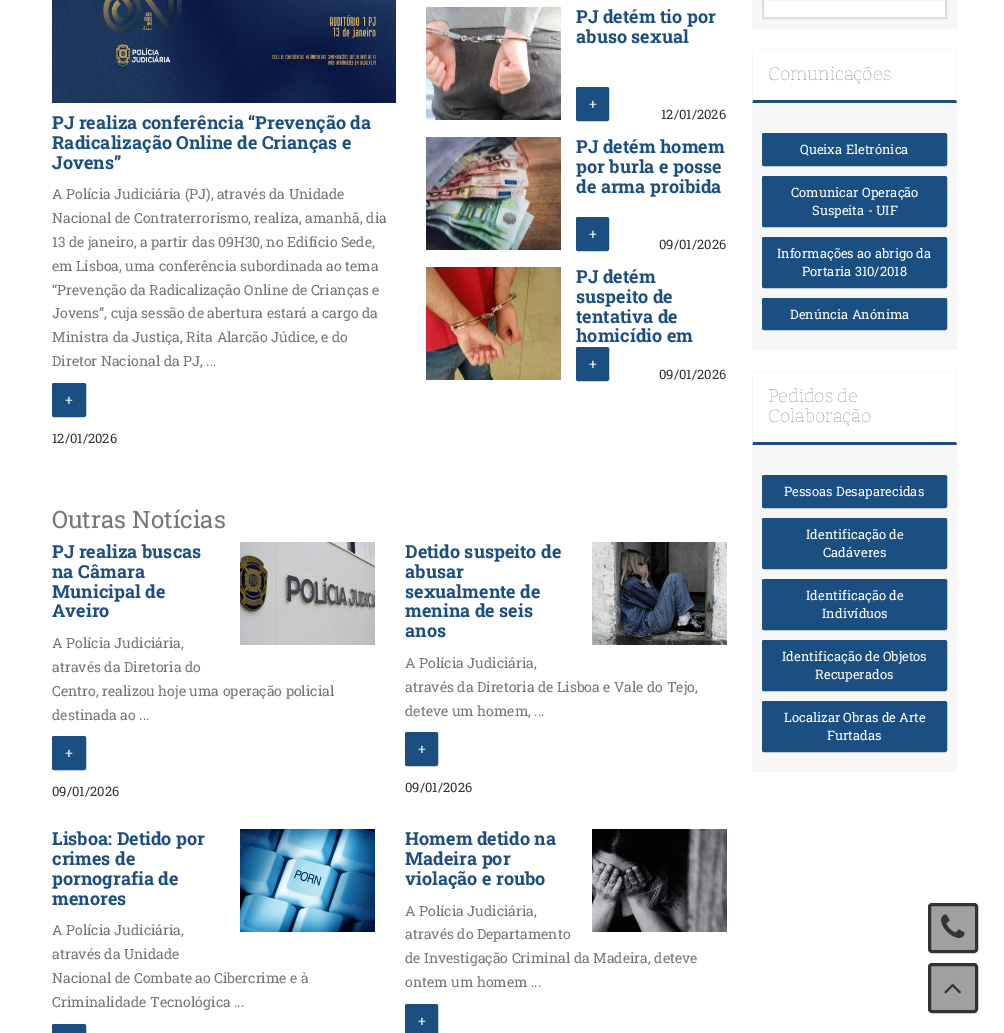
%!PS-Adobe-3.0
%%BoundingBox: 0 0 1004 1033
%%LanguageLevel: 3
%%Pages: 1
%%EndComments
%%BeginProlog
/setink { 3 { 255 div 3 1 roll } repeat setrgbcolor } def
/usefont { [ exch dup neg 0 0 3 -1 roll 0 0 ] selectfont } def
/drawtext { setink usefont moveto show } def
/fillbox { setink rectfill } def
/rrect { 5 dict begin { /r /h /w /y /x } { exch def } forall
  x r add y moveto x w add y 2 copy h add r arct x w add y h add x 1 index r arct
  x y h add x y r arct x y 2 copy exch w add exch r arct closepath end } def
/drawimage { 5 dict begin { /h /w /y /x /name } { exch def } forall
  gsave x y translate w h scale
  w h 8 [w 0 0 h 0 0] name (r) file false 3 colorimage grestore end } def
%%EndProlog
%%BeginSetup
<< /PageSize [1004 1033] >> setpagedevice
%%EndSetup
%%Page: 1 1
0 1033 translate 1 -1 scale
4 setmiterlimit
0 0 1004 1033 255 255 255 fillbox
(assets/img1.rgb) 52 0 344 103 drawimage
(PJ realiza conferência “Prevenção da) 52 129 /RobotoSlab-Bold 18 28 79 129 drawtext
(Radicalização Online de Crianças e) 52 149 /RobotoSlab-Bold 18 28 79 129 drawtext
(Jovens”) 52 169 /RobotoSlab-Bold 18 28 79 129 drawtext
(A Polícia Judiciária \(PJ\), através da Unidade) 52 199 /RobotoSlab-Regular 14 119 119 119 drawtext
(Nacional de Contraterrorismo, realiza, amanhã, dia) 52 223 /RobotoSlab-Regular 14 119 119 119 drawtext
(13 de janeiro, a partir das 09H30, no Edifício Sede,) 52 247 /RobotoSlab-Regular 14 119 119 119 drawtext
(em Lisboa, uma conferência subordinada ao tema) 52 271 /RobotoSlab-Regular 14 119 119 119 drawtext
(“Prevenção da Radicalização Online de Crianças e) 52 295 /RobotoSlab-Regular 14 119 119 119 drawtext
(Jovens”, cuja sessão de abertura estará a cargo da) 52 318 /RobotoSlab-Regular 14 119 119 119 drawtext
(Ministra da Justiça, Rita Alarcão Júdice, e do) 52 342 /RobotoSlab-Regular 14 119 119 119 drawtext
(Diretor Nacional da PJ, ...) 52 366 /RobotoSlab-Regular 14 119 119 119 drawtext
28 79 129 setink
52.5 383.5 33 33 1.5 rrect gsave fill grestore
stroke
(+) 65 405 /RobotoSlab-Regular 14 255 255 255 drawtext
(12/01/2026) 52 443 /RobotoSlab-Regular 13 51 51 51 drawtext
(assets/img2.rgb) 426 7 135 113 drawimage
(PJ detém tio por) 576 23 /RobotoSlab-Bold 18 28 79 129 drawtext
(abuso sexual) 576 43 /RobotoSlab-Bold 18 28 79 129 drawtext
576.5 87.5 32 33 1.5 rrect gsave fill grestore
stroke
(+) 589 109 /RobotoSlab-Regular 14 255 255 255 drawtext
(12/01/2026) 661 119 /RobotoSlab-Regular 13 51 51 51 drawtext
(assets/img3.rgb) 426 137 135 113 drawimage
(PJ detém homem) 576 153 /RobotoSlab-Bold 18 28 79 129 drawtext
(por burla e posse) 576 173 /RobotoSlab-Bold 18 28 79 129 drawtext
(de arma proibida) 576 193 /RobotoSlab-Bold 18 28 79 129 drawtext
576.5 217.5 32 33 1.5 rrect gsave fill grestore
stroke
(+) 589 239 /RobotoSlab-Regular 14 255 255 255 drawtext
(09/01/2026) 659 249 /RobotoSlab-Regular 13 51 51 51 drawtext
(assets/img4.rgb) 426 267 135 113 drawimage
(PJ detém) 576 283 /RobotoSlab-Bold 18 28 79 129 drawtext
(suspeito de) 576 303 /RobotoSlab-Bold 18 28 79 129 drawtext
gsave
576 267 150 78 rectclip
(tentativa de) 576 323 /RobotoSlab-Bold 18 28 79 129 drawtext
(homicídio em) 576 342 /RobotoSlab-Bold 18 28 79 129 drawtext
grestore
576.5 347.5 32 33 1.5 rrect gsave fill grestore
stroke
(+) 589 369 /RobotoSlab-Regular 14 255 255 255 drawtext
(09/01/2026) 659 379 /RobotoSlab-Regular 13 51 51 51 drawtext
(Outras Notícias) 52 528 /RobotoSlab-Regular 24 119 119 119 drawtext
(PJ realiza buscas) 52 558 /RobotoSlab-Bold 18 28 79 129 drawtext
(na Câmara) 52 578 /RobotoSlab-Bold 18 28 79 129 drawtext
(Municipal de) 52 598 /RobotoSlab-Bold 18 28 79 129 drawtext
(Aveiro) 52 617 /RobotoSlab-Bold 18 28 79 129 drawtext
(assets/img5.rgb) 240 542 135 103 drawimage
(A Polícia Judiciária,) 52 648 /RobotoSlab-Regular 14 119 119 119 drawtext
(através da Diretoria do) 52 672 /RobotoSlab-Regular 14 119 119 119 drawtext
(Centro, realizou hoje uma operação policial) 52 696 /RobotoSlab-Regular 14 119 119 119 drawtext
(destinada ao ...) 52 720 /RobotoSlab-Regular 14 119 119 119 drawtext
28 79 129 setink
52.5 736.5 33 33 1.5 rrect gsave fill grestore
stroke
(+) 65 758 /RobotoSlab-Regular 14 255 255 255 drawtext
(09/01/2026) 52 796 /RobotoSlab-Regular 13 51 51 51 drawtext
(Detido suspeito de) 405 558 /RobotoSlab-Bold 18 28 79 129 drawtext
(abusar) 405 578 /RobotoSlab-Bold 18 28 79 129 drawtext
(sexualmente de) 405 598 /RobotoSlab-Bold 18 28 79 129 drawtext
(menina de seis) 405 617 /RobotoSlab-Bold 18 28 79 129 drawtext
(anos) 405 637 /RobotoSlab-Bold 18 28 79 129 drawtext
(assets/img6.rgb) 592 542 135 103 drawimage
(A Polícia Judiciária,) 405 668 /RobotoSlab-Regular 14 119 119 119 drawtext
(através da Diretoria de Lisboa e Vale do Tejo,) 405 692 /RobotoSlab-Regular 14 119 119 119 drawtext
(deteve um homem, ...) 405 716 /RobotoSlab-Regular 14 119 119 119 drawtext
28 79 129 setink
405.5 732.5 32 33 1.5 rrect gsave fill grestore
stroke
(+) 418 754 /RobotoSlab-Regular 14 255 255 255 drawtext
(09/01/2026) 405 792 /RobotoSlab-Regular 13 51 51 51 drawtext
(Lisboa: Detido por) 52 845 /RobotoSlab-Bold 18 28 79 129 drawtext
(crimes de) 52 865 /RobotoSlab-Bold 18 28 79 129 drawtext
(pornografia de) 52 885 /RobotoSlab-Bold 18 28 79 129 drawtext
(menores) 52 905 /RobotoSlab-Bold 18 28 79 129 drawtext
(assets/img7.rgb) 240 829 135 103 drawimage
(A Polícia Judiciária,) 52 935 /RobotoSlab-Regular 14 119 119 119 drawtext
(através da Unidade) 52 959 /RobotoSlab-Regular 14 119 119 119 drawtext
(Nacional de Combate ao Cibercrime e à) 52 983 /RobotoSlab-Regular 14 119 119 119 drawtext
(Criminalidade Tecnológica ...) 52 1007 /RobotoSlab-Regular 14 119 119 119 drawtext
28 79 129 setink
52.5 1024.5 33 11 1.5 rrect gsave fill grestore
stroke
(Homem detido na) 405 845 /RobotoSlab-Bold 18 28 79 129 drawtext
(Madeira por) 405 865 /RobotoSlab-Bold 18 28 79 129 drawtext
(violação e roubo) 405 885 /RobotoSlab-Bold 18 28 79 129 drawtext
(assets/img8.rgb) 592 829 135 103 drawimage
(A Polícia Judiciária,) 405 916 /RobotoSlab-Regular 14 119 119 119 drawtext
(através do Departamento) 405 939 /RobotoSlab-Regular 14 119 119 119 drawtext
(de Investigação Criminal da Madeira, deteve) 405 963 /RobotoSlab-Regular 14 119 119 119 drawtext
(ontem um homem ...) 405 987 /RobotoSlab-Regular 14 119 119 119 drawtext
28 79 129 setink
405.5 1004.5 32 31 1.5 rrect gsave fill grestore
stroke
(+) 418 1026 /RobotoSlab-Regular 14 255 255 255 drawtext
752 0 205 29 247 247 247 fillbox
255 255 255 setink
763 -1 moveto 946 -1 lineto 946 18 lineto 763 18 lineto closepath gsave fill grestore
221 221 221 setink
2 setlinewidth
stroke
752 49 205 301 247 247 247 fillbox
753 50 203 50 255 255 255 fillbox
28 79 129 setink
957 103 moveto 752 103 lineto 753 100 lineto 956 100 lineto closepath fill
247 247 247 setink
752 103 moveto 752 49 lineto 753 50 lineto 753 100 lineto closepath fill
(Comunicações) 768 80 /Bitter-Thin 18 119 119 119 drawtext
28 79 129 setink
762.5 133.5 184 32 1.5 rrect gsave fill grestore
1 setlinewidth
stroke
(Queixa Eletrónica) 800 154 /RobotoSlab-Regular 13 255 255 255 drawtext
28 79 129 setink
762.5 176.5 184 50 1.5 rrect gsave fill grestore
stroke
(Comunicar Operação) 791 197 /RobotoSlab-Regular 13 255 255 255 drawtext
(Suspeita - UIF) 812 215 /RobotoSlab-Regular 13 255 255 255 drawtext
28 79 129 setink
762.5 237.5 184 50 1.5 rrect gsave fill grestore
stroke
(Informações ao abrigo da) 777 258 /RobotoSlab-Regular 13 255 255 255 drawtext
(Portaria 310/2018) 802 276 /RobotoSlab-Regular 13 255 255 255 drawtext
28 79 129 setink
762.5 298.5 184 31 1.5 rrect gsave fill grestore
stroke
(Denúncia Anónima) 790 319 /RobotoSlab-Regular 13 255 255 255 drawtext
752 371 205 401 247 247 247 fillbox
753 372 203 70 255 255 255 fillbox
28 79 129 setink
957 445 moveto 752 445 lineto 753 442 lineto 956 442 lineto closepath fill
247 247 247 setink
752 445 moveto 752 371 lineto 753 372 lineto 753 442 lineto closepath fill
(Pedidos de) 768 402 /Bitter-Thin 18 119 119 119 drawtext
(Colaboração) 768 422 /Bitter-Thin 18 119 119 119 drawtext
28 79 129 setink
762.5 475.5 184 32 1.5 rrect gsave fill grestore
stroke
(Pessoas Desaparecidas) 784 496 /RobotoSlab-Regular 13 255 255 255 drawtext
28 79 129 setink
762.5 518.5 184 50 1.5 rrect gsave fill grestore
stroke
(Identificação de) 806 539 /RobotoSlab-Regular 13 255 255 255 drawtext
(Cadáveres) 823 557 /RobotoSlab-Regular 13 255 255 255 drawtext
28 79 129 setink
762.5 579.5 184 50 1.5 rrect gsave fill grestore
stroke
(Identificação de) 806 600 /RobotoSlab-Regular 13 255 255 255 drawtext
(Indivíduos) 822 618 /RobotoSlab-Regular 13 255 255 255 drawtext
28 79 129 setink
762.5 640.5 184 50 1.5 rrect gsave fill grestore
stroke
(Identificação de Objetos) 782 661 /RobotoSlab-Regular 13 255 255 255 drawtext
(Recuperados) 815 679 /RobotoSlab-Regular 13 255 255 255 drawtext
28 79 129 setink
762.5 701.5 184 50 1.5 rrect gsave fill grestore
stroke
(Localizar Obras de Arte) 784 722 /RobotoSlab-Regular 13 255 255 255 drawtext
(Furtadas) 827 740 /RobotoSlab-Regular 13 255 255 255 drawtext
160 160 160 setink
929.5 904.5 47 47 2.5 rrect gsave fill grestore
51 51 51 setink
3 setlinewidth
stroke
(assets/img9.rgb) 941 914 24 24 drawimage
160 160 160 setink
929.5 964.5 47 47 2.5 rrect gsave fill grestore
51 51 51 setink
stroke
(assets/img10.rgb) 944 983 17 11 drawimage
showpage
%%EOF
